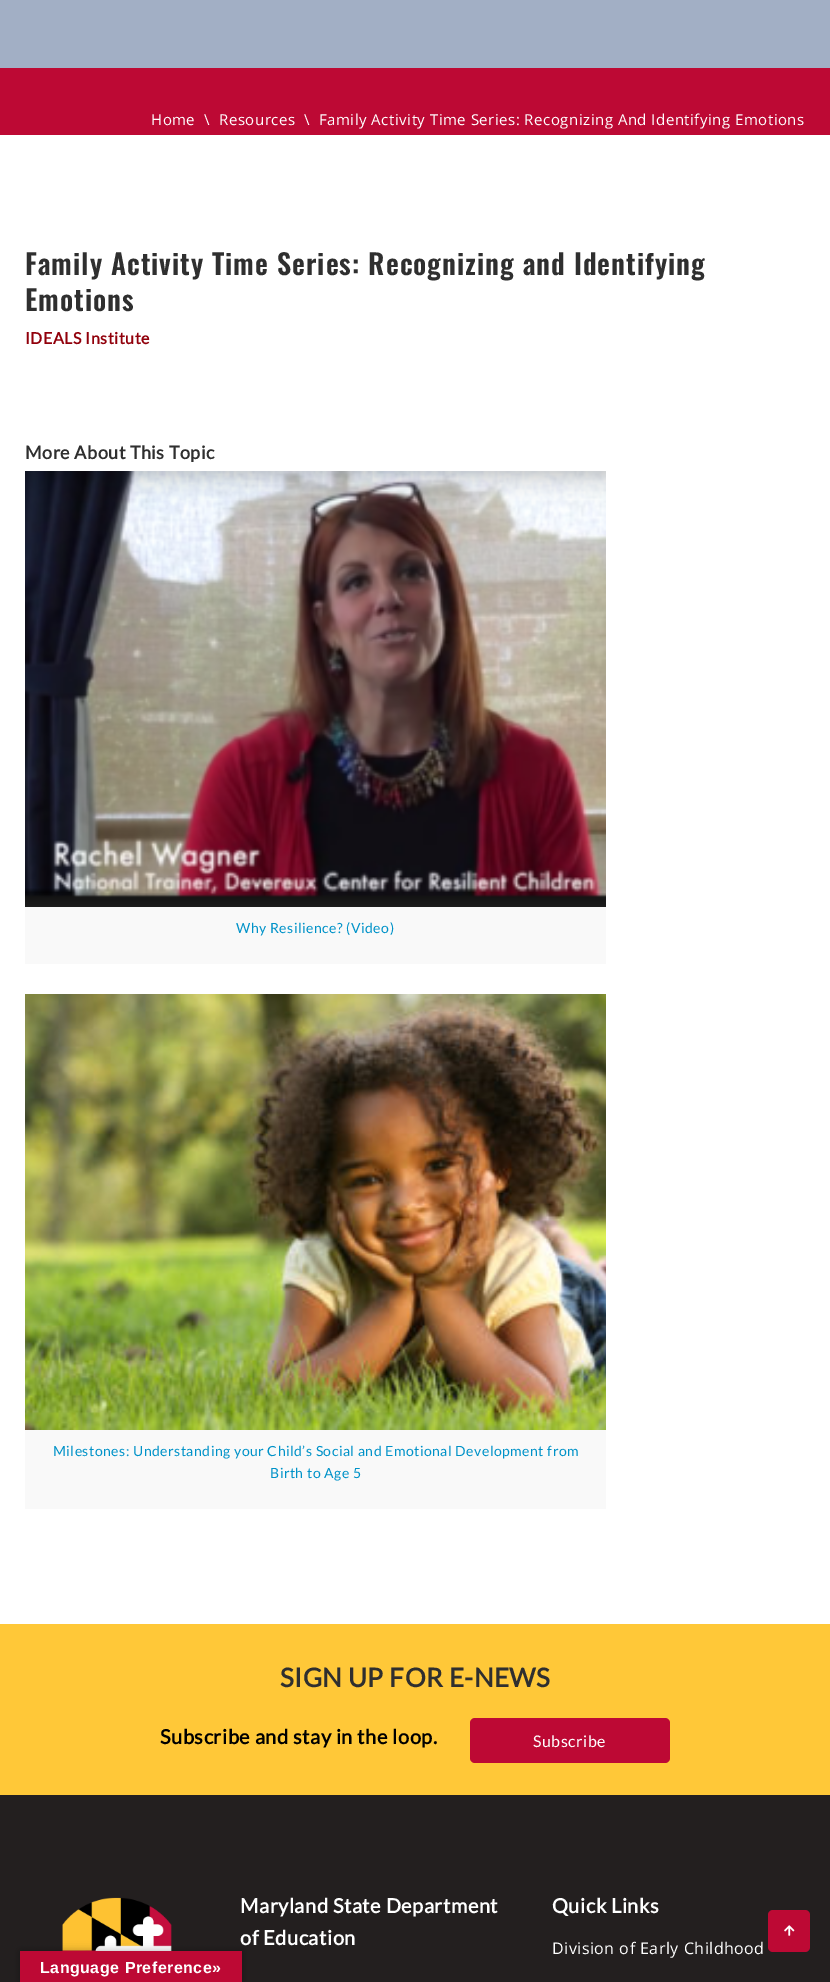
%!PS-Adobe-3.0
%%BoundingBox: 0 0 830 1982
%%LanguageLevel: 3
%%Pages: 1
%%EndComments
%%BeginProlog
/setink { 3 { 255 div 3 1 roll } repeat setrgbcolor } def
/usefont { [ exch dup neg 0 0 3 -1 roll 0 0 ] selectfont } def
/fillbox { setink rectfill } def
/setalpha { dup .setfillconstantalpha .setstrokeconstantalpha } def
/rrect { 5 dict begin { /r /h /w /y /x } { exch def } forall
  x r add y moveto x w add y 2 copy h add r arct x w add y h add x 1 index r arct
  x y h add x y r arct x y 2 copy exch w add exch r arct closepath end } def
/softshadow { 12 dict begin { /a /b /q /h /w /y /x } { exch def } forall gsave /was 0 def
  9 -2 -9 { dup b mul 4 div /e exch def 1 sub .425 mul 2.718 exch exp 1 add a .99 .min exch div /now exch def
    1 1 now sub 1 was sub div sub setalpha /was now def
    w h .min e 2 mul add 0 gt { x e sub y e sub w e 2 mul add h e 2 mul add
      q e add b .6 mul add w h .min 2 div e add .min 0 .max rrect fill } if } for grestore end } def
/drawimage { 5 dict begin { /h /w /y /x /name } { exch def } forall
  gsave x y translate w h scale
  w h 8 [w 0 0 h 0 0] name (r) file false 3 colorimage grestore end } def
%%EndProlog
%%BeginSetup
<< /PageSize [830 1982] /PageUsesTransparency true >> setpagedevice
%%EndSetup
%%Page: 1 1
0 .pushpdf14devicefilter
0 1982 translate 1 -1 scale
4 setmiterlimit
0 0 830 1982 255 255 255 fillbox
0 0 830 68 162 175 197 fillbox
0 68 830 67 189 9 52 fillbox
/OpenSans-Regular 15 usefont
255 255 255 setink
151 125 moveto 0.5 0 (Home) ashow
204 125 moveto 0.5 0 (\\) ashow
219 125 moveto 0.5 0 (Resources) ashow
304 125 moveto 0.5 0 (\\) ashow
319 125 moveto 0.5 0 (Family Activity Time Series: Recognizing And Identifying Emotions) ashow
/Oswald-SemiBold 28 usefont
47 47 47 setink
25 275 moveto 1 0 (Family Activity Time Series: Recognizing and Identifying) ashow
25 311 moveto 1 0 (Emotions) ashow
/Lato-Bold 16 usefont
145 0 11 setink
25 344 moveto 0.5 0 (IDEALS Institute) ashow
/Lato-Bold 18 usefont
47 47 47 setink
25 459 moveto 0.5 0 (More About This Topic) ashow
(assets/img1.rgb) 25 471 581 436 drawimage
25 907 581 57 249 249 249 fillbox
/Lato-Regular 14 usefont
0 146 200 setink
236 933 moveto 0.5 0 (Why Resilience? \(Video\)) ashow
(assets/img2.rgb) 25 994 581 436 drawimage
25 1430 581 79 249 249 249 fillbox
0 146 200 setink
53 1456 moveto 0.5 0 (Milestones: Understanding your Child’s Social and Emotional Development from) ashow
270 1478 moveto 0.5 0 (Birth to Age 5) ashow
0 1624 830 171 255 200 56 fillbox
/Lato-Bold 26 usefont
47 47 47 setink
280 1687 moveto 0.5 0 (SIGN UP FOR E-NEWS) ashow
/Lato-Bold 20 usefont
0 0 0 setink
160 1744 moveto 0.5 0 (Subscribe and stay in the loop.) ashow
189 9 52 setink
470 1718 200 45 5 rrect fill
/Lato-Regular 16 usefont
255 255 255 setink
533 1747 moveto 0.5 0 (Subscribe) ashow
0 1795 830 187 35 31 31 fillbox
(assets/img3.rgb) 62 1897 110 54 drawimage
/Lato-Bold 20 usefont
255 255 255 setink
240 1913 moveto 0.5 0 (Maryland State Department) ashow
240 1945 moveto 0.5 0 (of Education) ashow
552 1913 moveto 0.5 0 (Quick Links) ashow
/OpenSans-Regular 16 usefont
552 1954 moveto 0.5 0 (Division of Early Childhood) ashow
189 9 52 setink
768 1910 42 42 5 rrect fill
(assets/img4.rgb) 784 1925 11 11 drawimage
0 0 0 setink
20 1951 222 31 0 4.5 0.3 softshadow
20 1951 222 31 189 9 52 fillbox
/LiberationSans-Bold 16 usefont
255 255 255 setink
40 1973 moveto 0.5 0 (Language Preference») ashow
.poppdf14devicefilter showpage
%%EOF
